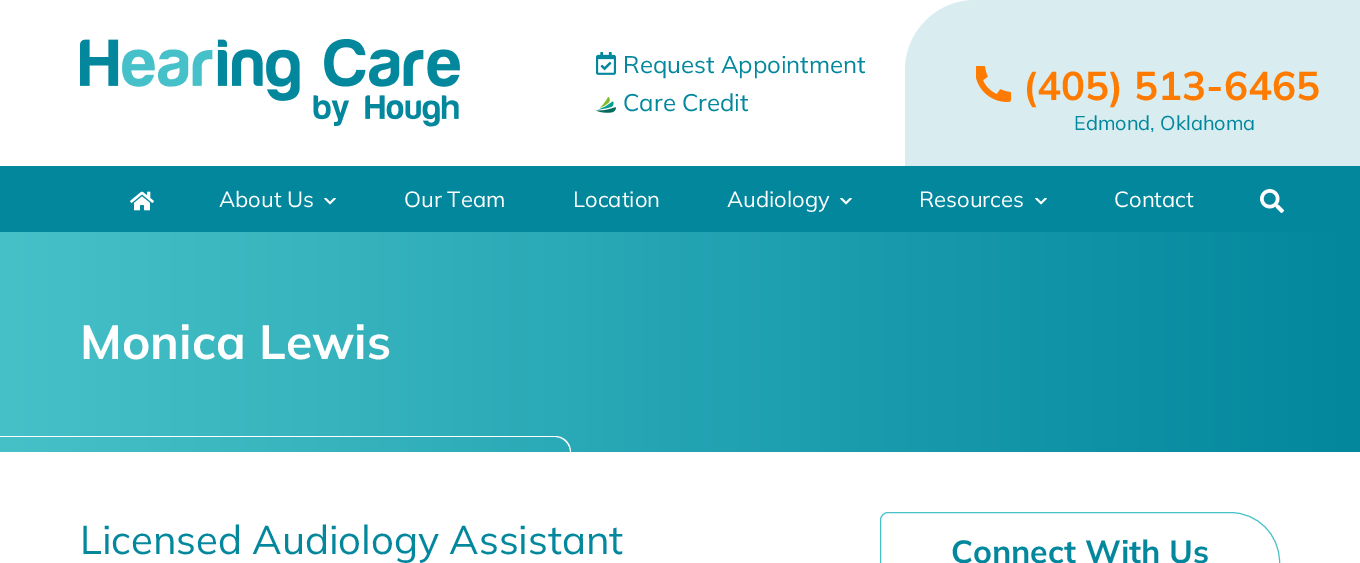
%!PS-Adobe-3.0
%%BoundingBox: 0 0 1360 563
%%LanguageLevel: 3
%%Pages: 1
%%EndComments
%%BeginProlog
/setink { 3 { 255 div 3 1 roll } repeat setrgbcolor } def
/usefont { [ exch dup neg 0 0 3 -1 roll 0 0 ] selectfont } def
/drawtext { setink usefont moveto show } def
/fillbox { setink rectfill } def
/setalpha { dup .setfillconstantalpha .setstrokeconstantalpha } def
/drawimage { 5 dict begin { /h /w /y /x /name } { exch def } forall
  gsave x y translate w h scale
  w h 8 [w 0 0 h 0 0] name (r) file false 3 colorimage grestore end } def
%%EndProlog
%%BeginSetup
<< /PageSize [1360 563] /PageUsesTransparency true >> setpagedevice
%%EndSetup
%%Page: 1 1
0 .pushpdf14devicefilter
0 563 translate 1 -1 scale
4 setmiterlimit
0 0 1360 563 255 255 255 fillbox
(assets/img1.rgb) 80 39 380 88 drawimage
(assets/img2.rgb) 596 52 20 23 drawimage
(Request Appointment) 623 73 /Mulish-Regular 24 2 135 157 drawtext
(assets/img3.rgb) 596 97 20 16 drawimage
(Care Credit) 623 111 /Mulish-Regular 24 2 135 157 drawtext
(Edmond, Oklahoma) 1074 130 /Mulish-Regular 20 2 135 157 drawtext
0.15 setalpha
975 0 moveto 1360 0 lineto 1360 166 lineto 905 166 lineto 905 70 lineto 905 31.5 936.5 0 975 0 curveto closepath fill
1 setalpha
(assets/img4.rgb) 976 66 35 36 drawimage
(\(405\) 513-6465) 1023 100 /Mulish-Bold 40 255 123 0 drawtext
0 166 1360 66 2 135 157 fillbox
(assets/img5.rgb) 130 191 24 20 drawimage
(About Us) 219 207 /Mulish-Regular 22 255 255 255 drawtext
(assets/img6.rgb) 324 198 12 7 drawimage
(Our Team) 404 207 /Mulish-Regular 22 255 255 255 drawtext
(Location) 573 207 /Mulish-Regular 22 255 255 255 drawtext
(Audiology) 727 207 /Mulish-Regular 22 255 255 255 drawtext
(assets/img6.rgb) 840 198 12 7 drawimage
(Resources) 919 207 /Mulish-Regular 22 255 255 255 drawtext
(assets/img6.rgb) 1035 198 12 7 drawimage
(Contact) 1114 207 /Mulish-Regular 22 255 255 255 drawtext
(assets/img7.rgb) 1260 189 24 24 drawimage
gsave 0 232 moveto 1360 232 lineto 1360 452 lineto 0 452 lineto closepath clip newpath
<< /ShadingType 2 /ColorSpace /DeviceRGB /Coords [1360 342 0 342] /Extend [true true] /Function << /FunctionType 2 /Domain [0 1] /C0 [0.008 0.529 0.616] /C1 [0.278 0.757 0.784] /N 1 >> >> shfill grestore
(Monica Lewis) 80 359 /Mulish-Bold 48 255 255 255 drawtext
0 436 moveto 555 436 lineto 564 436 571 443 571 452 curveto 0 452 lineto closepath 0 437 moveto 555 437 lineto 563 437 570 444 570 452 curveto 0 452 lineto closepath eofill
(Licensed Audiology Assistant) 80 554 /Mulish-Regular 40 2 135 157 drawtext
71 193 200 setink
888 512.5 moveto 1230 512.5 lineto 1257.5 512.5 1279.5 534.5 1279.5 562 curveto 1279.5 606 lineto 1279.5 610 1276 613.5 1272 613.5 curveto 930 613.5 lineto 902.5 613.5 880.5 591.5 880.5 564 curveto 880.5 520 lineto 880.5 516 884 512.5 888 512.5 curveto closepath stroke
(Connect With Us) 951 563 /Mulish-Bold 32 2 135 157 drawtext
.poppdf14devicefilter showpage
%%EOF
